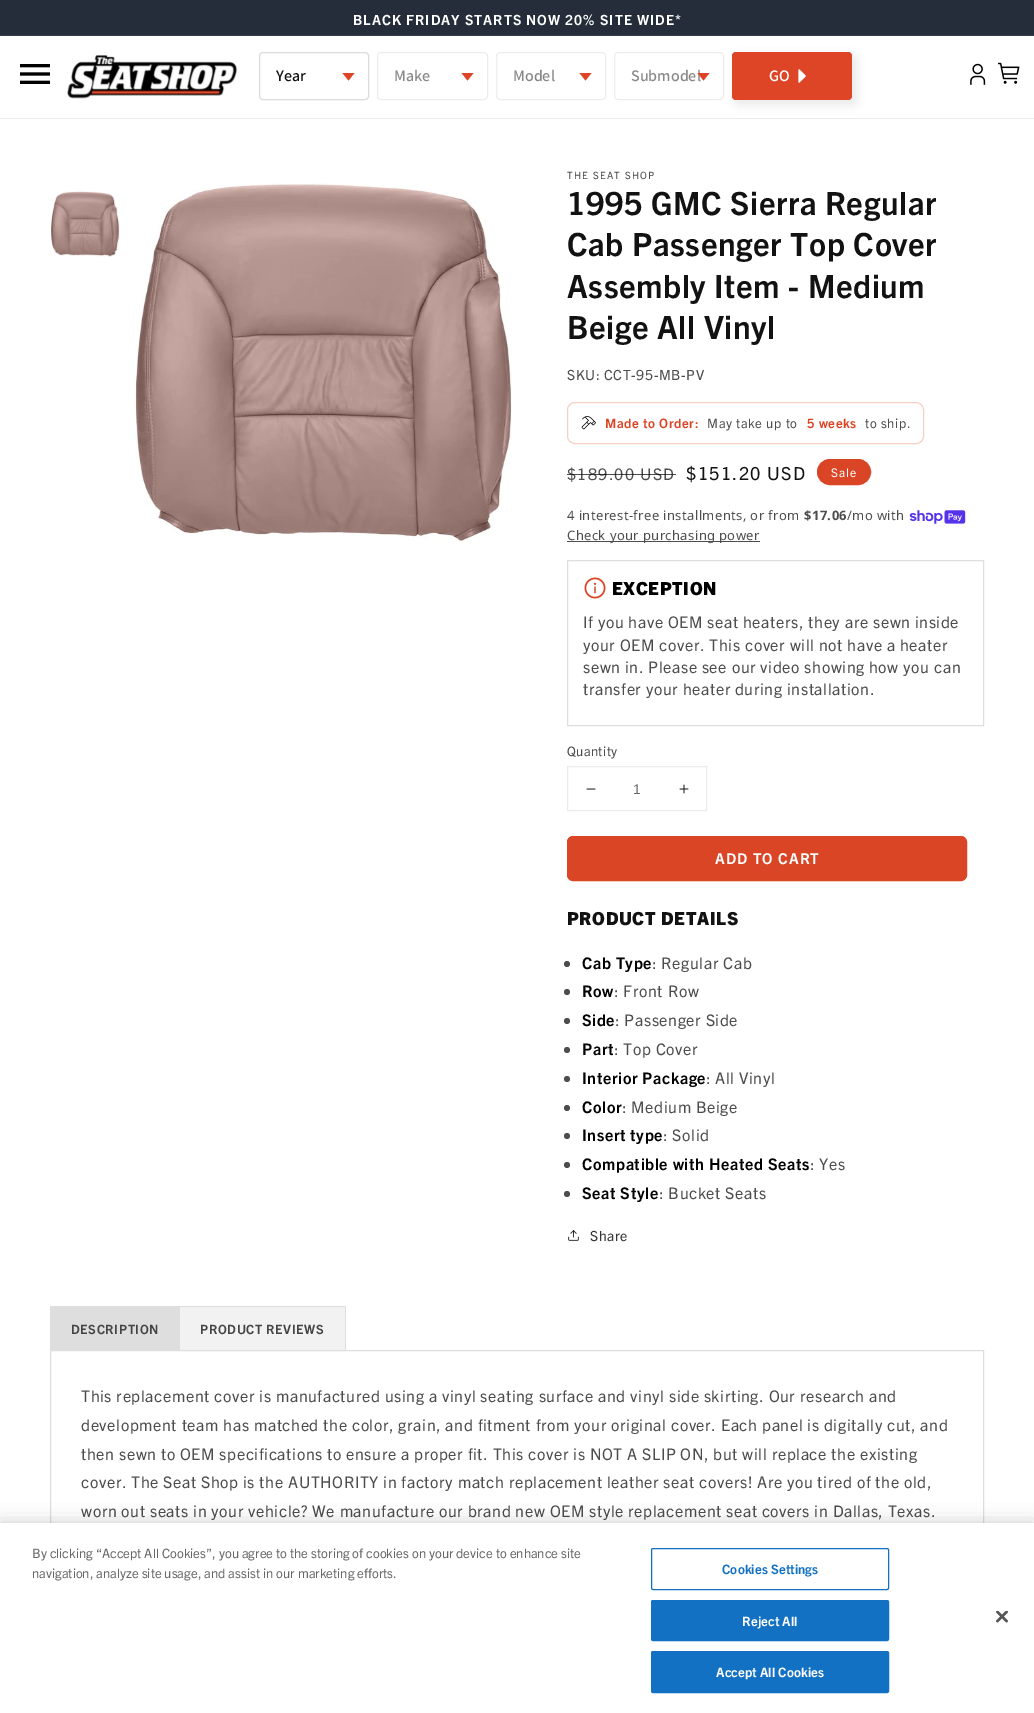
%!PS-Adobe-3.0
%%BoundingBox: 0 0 1034 1713
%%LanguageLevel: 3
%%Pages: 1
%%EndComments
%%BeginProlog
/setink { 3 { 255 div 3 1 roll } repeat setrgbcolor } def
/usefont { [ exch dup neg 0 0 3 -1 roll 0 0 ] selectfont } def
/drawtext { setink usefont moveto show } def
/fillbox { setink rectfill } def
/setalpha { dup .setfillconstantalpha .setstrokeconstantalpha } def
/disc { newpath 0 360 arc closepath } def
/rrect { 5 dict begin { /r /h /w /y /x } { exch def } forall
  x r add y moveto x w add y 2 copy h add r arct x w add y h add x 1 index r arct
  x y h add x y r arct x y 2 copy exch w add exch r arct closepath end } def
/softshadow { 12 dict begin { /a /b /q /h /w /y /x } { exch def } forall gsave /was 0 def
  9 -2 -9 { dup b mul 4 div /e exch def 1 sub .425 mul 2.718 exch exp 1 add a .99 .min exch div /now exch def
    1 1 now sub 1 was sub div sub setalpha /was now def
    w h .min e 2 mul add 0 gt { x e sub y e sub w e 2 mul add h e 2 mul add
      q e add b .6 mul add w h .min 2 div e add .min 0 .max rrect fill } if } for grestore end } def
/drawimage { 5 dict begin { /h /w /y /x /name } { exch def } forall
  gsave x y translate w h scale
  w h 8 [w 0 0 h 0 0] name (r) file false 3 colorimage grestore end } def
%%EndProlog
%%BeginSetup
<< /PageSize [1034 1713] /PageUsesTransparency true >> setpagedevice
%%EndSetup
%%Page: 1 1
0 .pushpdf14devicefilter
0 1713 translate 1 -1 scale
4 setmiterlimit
0 0 1034 1713 255 255 255 fillbox
0 0 1034 35 37 45 59 fillbox
0 35 1034 1 55 62 75 fillbox
/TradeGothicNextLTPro-Bold 14 usefont
255 255 255 setink
353 25 moveto 1 0 (BLACK FRIDAY STARTS NOW 20% SITE WIDE*) ashow
0 118 1034 1 236 236 236 fillbox
(assets/img1.rgb) 20 64 30 20 drawimage
(assets/img2.rgb) 67 55 171 44 drawimage
219 219 219 setink
259.5 52.5 109 47 3.5 rrect stroke
(Year) 276 81 /Assistant-SemiBold 16 18 18 18 drawtext
222 69 39 setink
354.5 73 moveto 348.5 80.5 lineto 342.5 73 lineto closepath fill
237 237 237 setink
377.5 52.5 110 47 3.5 rrect stroke
(Make) 394 81 /Assistant-SemiBold 16 137 137 137 drawtext
222 69 39 setink
473.5 73 moveto 467.5 80.5 lineto 461.5 73 lineto closepath fill
237 237 237 setink
496.5 52.5 109 47 3.5 rrect stroke
(Model) 513 81 /Assistant-SemiBold 16 137 137 137 drawtext
222 69 39 setink
591.5 73 moveto 585.5 80.5 lineto 579.5 73 lineto closepath fill
0 0 0 setink
735 55 122 50 5 4.5 0.08 softshadow
237 237 237 setink
614.5 52.5 109 47 3.5 rrect stroke
(Submodel) 631 81 /Assistant-SemiBold 16 137 137 137 drawtext
222 69 39 setink
709.5 73 moveto 703.5 80.5 lineto 697.5 73 lineto closepath fill
732 52 120 48 4 rrect fill
(GO) 769 81 /Assistant-SemiBold 16 255 255 255 drawtext
(assets/img3.rgb) 798 69 8 14 drawimage
(assets/img4.rgb) 970 63 16 22 drawimage
(assets/img5.rgb) 998 62 22 22 drawimage
(assets/img6.rgb) 51 191 69 66 drawimage
(assets/img7.rgb) 135 183 377 360 drawimage
/TradeGothicNextLTPro-Regular 10 usefont
77 77 77 setink
567 179 moveto 1.25 0 (THE SEAT SHOP) ashow
/TradeGothicNextLTPro-Bold 32 usefont
18 18 18 setink
567 215 moveto 0.6 0 (1995 GMC Sierra Regular) ashow
567 256 moveto 0.6 0 (Cab Passenger Top Cover) ashow
567 298 moveto 0.6 0 (Assembly Item - Medium) ashow
567 339 moveto 0.6 0 (Beige All Vinyl) ashow
/TradeGothicNextLTPro-Regular 14 usefont
77 77 77 setink
567 380 moveto 0.6 0 (SKU: CCT-95-MB-PV) ashow
244 209 194 setink
567.5 402.5 356 41 7.5 rrect stroke
(assets/img8.rgb) 581 416 15 14 drawimage
/TradeGothicNextLTPro-Bold 13 usefont
218 69 38 setink
605 428 moveto 0.6 0 (Made to Order:) ashow
/TradeGothicNextLTPro-Regular 13 usefont
77 77 77 setink
707 428 moveto 0.6 0 (May take up to) ashow
/TradeGothicNextLTPro-Bold 13 usefont
218 69 38 setink
807 428 moveto 0.6 0 (5 weeks) ashow
/TradeGothicNextLTPro-Regular 13 usefont
77 77 77 setink
865 428 moveto 0.6 0 (to ship.) ashow
/TradeGothicNextLTPro-Regular 16 usefont
567 480 moveto 1.25 0 ($189.00 USD) ashow
0.75 setalpha
567 474 109 1 18 18 18 fillbox
/TradeGothicNextLTPro-Regular 18 usefont
1 setalpha
686 480 moveto 1.25 0 ($151.20 USD) ashow
218 69 38 setink
817.5 459.5 53 25 12.5 rrect gsave fill grestore
stroke
/TradeGothicNextLTPro-Regular 12 usefont
255 255 255 setink
831 477 moveto 1 0 (Sale) ashow
/NotoSans-Regular 13 usefont
77 77 77 setink
567 520 moveto 0.4 0 (4 interest-free installments, or from) ashow
/NotoSans-Bold 13 usefont
804 520 moveto 0.4 0 ($17.06) ashow
/NotoSans-Regular 13 usefont
847 520 moveto 0.4 0 (/mo with) ashow
(assets/img9.rgb) 909 510 57 14 drawimage
567 541 193 1 77 77 77 fillbox
567 540 moveto 0.4 0 (Check your purchasing power) ashow
222 222 222 setink
567.5 560.5 416 165 rectstroke
(assets/img10.rgb) 584 577 22 22 drawimage
/TradeGothicNextLTPro-ExtraBold 18 usefont
0 0 0 setink
612 595 moveto 0.6 0 (EXCEPTION) ashow
/TradeGothicNextLTPro-Regular 16 usefont
77 77 77 setink
583 628 moveto 0.6 0 (If you have OEM seat heaters, they are sewn inside) ashow
583 651 moveto 0.6 0 (your OEM cover. This cover will not have a heater) ashow
583 673 moveto 0.6 0 (sewn in. Please see our video showing how you can) ashow
583 695 moveto 0.6 0 (transfer your heater during installation.) ashow
/TradeGothicNextLTPro-Regular 13 usefont
567 756 moveto 0.4 0 (Quantity) ashow
236 236 236 setink
567.5 766.5 139 44 rectstroke
(assets/img11.rgb) 586 788 10 2 drawimage
(1) 633 794 /LiberationSans-Regular 14 104 104 104 drawtext
(assets/img12.rgb) 679 784 10 10 drawimage
218 69 38 setink
567.5 836.5 399 44 5.5 rrect gsave fill grestore
stroke
/TradeGothicNextLTPro-Bold 15 usefont
255 255 255 setink
715 864 moveto 1 0 (ADD TO CART) ashow
/TradeGothicNextLTPro-ExtraBold 18 usefont
18 18 18 setink
567 925 moveto 0.6 0 (PRODUCT DETAILS) ashow
77 77 77 setink
567 964 3 disc fill
/TradeGothicNextLTPro-Bold 16 usefont
0 0 0 setink
582 969 moveto 0.6 0 (Cab Type) ashow
/TradeGothicNextLTPro-Regular 16 usefont
77 77 77 setink
652 969 moveto 0.6 0 (: Regular Cab) ashow
567 992 3 disc fill
/TradeGothicNextLTPro-Bold 16 usefont
0 0 0 setink
582 997 moveto 0.6 0 (Row) ashow
/TradeGothicNextLTPro-Regular 16 usefont
77 77 77 setink
614 997 moveto 0.6 0 (: Front Row) ashow
567 1021 3 disc fill
/TradeGothicNextLTPro-Bold 16 usefont
0 0 0 setink
582 1026 moveto 0.6 0 (Side) ashow
/TradeGothicNextLTPro-Regular 16 usefont
77 77 77 setink
615 1026 moveto 0.6 0 (: Passenger Side) ashow
567 1050 3 disc fill
/TradeGothicNextLTPro-Bold 16 usefont
0 0 0 setink
582 1055 moveto 0.6 0 (Part) ashow
/TradeGothicNextLTPro-Regular 16 usefont
77 77 77 setink
614 1055 moveto 0.6 0 (: Top Cover) ashow
567 1079 3 disc fill
/TradeGothicNextLTPro-Bold 16 usefont
0 0 0 setink
582 1084 moveto 0.6 0 (Interior Package) ashow
/TradeGothicNextLTPro-Regular 16 usefont
77 77 77 setink
706 1084 moveto 0.6 0 (: All Vinyl) ashow
567 1108 3 disc fill
/TradeGothicNextLTPro-Bold 16 usefont
0 0 0 setink
582 1113 moveto 0.6 0 (Color) ashow
/TradeGothicNextLTPro-Regular 16 usefont
77 77 77 setink
622 1113 moveto 0.6 0 (: Medium Beige) ashow
567 1136 3 disc fill
/TradeGothicNextLTPro-Bold 16 usefont
0 0 0 setink
582 1141 moveto 0.6 0 (Insert type) ashow
/TradeGothicNextLTPro-Regular 16 usefont
77 77 77 setink
663 1141 moveto 0.6 0 (: Solid) ashow
567 1165 3 disc fill
/TradeGothicNextLTPro-Bold 16 usefont
0 0 0 setink
582 1170 moveto 0.6 0 (Compatible with Heated Seats) ashow
/TradeGothicNextLTPro-Regular 16 usefont
77 77 77 setink
810 1170 moveto 0.6 0 (: Yes) ashow
567 1194 3 disc fill
/TradeGothicNextLTPro-Bold 16 usefont
0 0 0 setink
582 1199 moveto 0.6 0 (Seat Style) ashow
/TradeGothicNextLTPro-Regular 16 usefont
77 77 77 setink
659 1199 moveto 0.6 0 (: Bucket Seats) ashow
(assets/img13.rgb) 568 1230 11 11 drawimage
/TradeGothicNextLTPro-Regular 14 usefont
54 54 54 setink
590 1241 moveto 0.6 0 (Share) ashow
51 1307 128 43 222 222 222 fillbox
50 1306 296 1 222 222 222 fillbox
179 1306 1 44 222 222 222 fillbox
50 1306 1 44 222 222 222 fillbox
/TradeGothicNextLTPro-Bold 12.75 usefont
69 69 69 setink
71 1334 moveto 0.6 0 (DESCRIPTION) ashow
180 1307 165 43 242 242 242 fillbox
345 1306 1 44 222 222 222 fillbox
69 69 69 setink
200 1334 moveto 0.6 0 (PRODUCT REVIEWS) ashow
222 222 222 setink
50.5 1350.5 933 205 rectstroke
/TradeGothicNextLTPro-Regular 16 usefont
77 77 77 setink
81 1402 moveto 0.6 0 (This replacement cover is manufactured using a vinyl seating surface and vinyl side skirting. Our research and) ashow
81 1431 moveto 0.6 0 (development team has matched the color, grain, and fitment from your original cover. Each panel is digitally cut, and) ashow
81 1460 moveto 0.6 0 (then sewn to OEM specifications to ensure a proper fit. This cover is NOT A SLIP ON, but will replace the existing) ashow
81 1488 moveto 0.6 0 (cover. The Seat Shop is the AUTHORITY in factory match replacement leather seat covers! Are you tired of the old,) ashow
81 1517 moveto 0.6 0 (worn out seats in your vehicle? We manufacture our brand new OEM style replacement seat covers in Dallas, Texas.) ashow
0 0 0 setink
0 1523 1034 190 0 9 0.2 softshadow
0 1523 1034 190 255 255 255 fillbox
(By clicking “Accept All Cookies”, you agree to the storing of cookies on your device to enhance site) 32 1558 /TradeGothicNextLTPro-Regular 13 104 104 104 drawtext
(navigation, analyze site usage, and assist in our marketing efforts.) 32 1578 /TradeGothicNextLTPro-Regular 13 104 104 104 drawtext
19 113 195 setink
651.5 1548.5 237 41 1.5 rrect stroke
/TradeGothicNextLTPro-Bold 13 usefont
722 1574 moveto 0.1 0 (Cookies Settings) ashow
651.5 1600.5 237 40 1.5 rrect gsave fill grestore
stroke
255 255 255 setink
742 1626 moveto 0.1 0 (Reject All) ashow
19 113 195 setink
651.5 1651.5 237 41 1.5 rrect gsave fill grestore
stroke
255 255 255 setink
716 1677 moveto 0.1 0 (Accept All Cookies) ashow
(assets/img14.rgb) 996 1611 12 12 drawimage
.poppdf14devicefilter showpage
%%EOF
